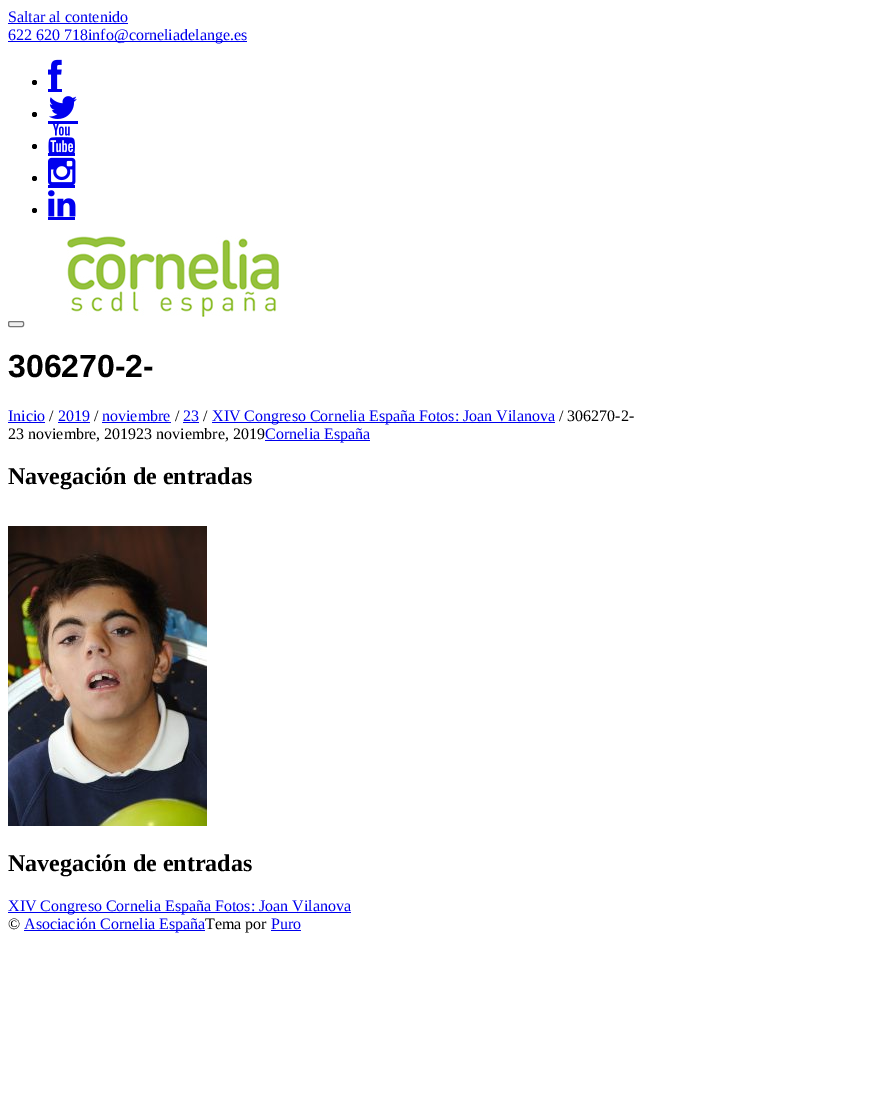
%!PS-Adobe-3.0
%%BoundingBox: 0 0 885 1093
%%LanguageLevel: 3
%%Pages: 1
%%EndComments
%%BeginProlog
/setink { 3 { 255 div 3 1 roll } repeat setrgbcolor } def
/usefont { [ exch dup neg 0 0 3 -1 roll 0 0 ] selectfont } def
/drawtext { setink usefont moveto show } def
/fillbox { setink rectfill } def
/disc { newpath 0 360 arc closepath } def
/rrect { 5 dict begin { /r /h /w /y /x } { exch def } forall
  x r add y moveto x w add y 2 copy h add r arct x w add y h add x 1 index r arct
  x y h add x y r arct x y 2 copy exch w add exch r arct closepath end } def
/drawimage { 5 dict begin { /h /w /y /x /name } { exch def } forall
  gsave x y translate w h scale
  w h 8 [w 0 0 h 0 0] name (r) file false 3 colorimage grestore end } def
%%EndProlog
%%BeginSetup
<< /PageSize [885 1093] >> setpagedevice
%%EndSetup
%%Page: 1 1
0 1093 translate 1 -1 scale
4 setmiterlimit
0 0 885 1093 255 255 255 fillbox
(Saltar al contenido) 8 22 /LiberationSerif-Regular 16 0 0 238 drawtext
8 23 120 1 0 0 238 fillbox
8 41 239 1 0 0 238 fillbox
(622 620 718info@corneliadelange.es) 8 40 /LiberationSerif-Regular 16 0 0 238 drawtext
0 0 0 setink
34.5 82.5 2.5 disc fill
48 89 14 3 0 0 238 fillbox
(assets/img1.rgb) 48 59 14 30 drawimage
0 0 0 setink
34.5 114.5 2.5 disc fill
48 121 30 3 0 0 238 fillbox
(assets/img2.rgb) 49 96 28 23 drawimage
0 0 0 setink
34.5 146.5 2.5 disc fill
48 153 27 3 0 0 238 fillbox
(assets/img3.rgb) 48 124 27 29 drawimage
0 0 0 setink
34.5 178.5 2.5 disc fill
48 185 27 3 0 0 238 fillbox
(assets/img4.rgb) 48 157 28 28 drawimage
0 0 0 setink
34.5 210.5 2.5 disc fill
48 217 27 3 0 0 238 fillbox
(assets/img5.rgb) 48 190 28 27 drawimage
(assets/img6.rgb) 67 236 213 81 drawimage
239 239 239 setink
8.5 321.5 15 5 1.5 rrect gsave fill grestore
118 118 118 setink
stroke
(306270-2-) 8 377 /LiberationSans-Bold 32 0 0 0 drawtext
(Inicio) 8 421 /LiberationSerif-Regular 16 0 0 238 drawtext
8 422 37 1 0 0 238 fillbox
(/) 49 421 /LiberationSerif-Regular 16 0 0 0 drawtext
(2019) 58 421 /LiberationSerif-Regular 16 0 0 238 drawtext
58 422 32 1 0 0 238 fillbox
(/) 94 421 /LiberationSerif-Regular 16 0 0 0 drawtext
(noviembre) 102 421 /LiberationSerif-Regular 16 0 0 238 drawtext
102 422 69 1 0 0 238 fillbox
(/) 175 421 /LiberationSerif-Regular 16 0 0 0 drawtext
(23) 183 421 /LiberationSerif-Regular 16 0 0 238 drawtext
183 422 16 1 0 0 238 fillbox
(/) 203 421 /LiberationSerif-Regular 16 0 0 0 drawtext
212 422 343 1 0 0 238 fillbox
(XIV Congreso Cornelia España Fotos: Joan Vilanova) 212 421 /LiberationSerif-Regular 16 0 0 238 drawtext
(/ 306270-2-) 559 421 /LiberationSerif-Regular 16 0 0 0 drawtext
(23 noviembre, 201923 noviembre, 2019) 8 439 /LiberationSerif-Regular 16 0 0 0 drawtext
265 440 105 1 0 0 238 fillbox
(Cornelia España) 265 439 /LiberationSerif-Regular 16 0 0 238 drawtext
(Navegación de entradas) 8 484 /LiberationSerif-Bold 24 0 0 0 drawtext
(assets/img7.rgb) 8 526 199 300 drawimage
(Navegación de entradas) 8 871 /LiberationSerif-Bold 24 0 0 0 drawtext
8 912 343 1 0 0 238 fillbox
(XIV Congreso Cornelia España Fotos: Joan Vilanova) 8 911 /LiberationSerif-Regular 16 0 0 238 drawtext
(©) 8 929 /LiberationSerif-Regular 16 0 0 0 drawtext
24 930 181 1 0 0 238 fillbox
(Asociación Cornelia España) 24 929 /LiberationSerif-Regular 16 0 0 238 drawtext
(Tema por) 205 929 /LiberationSerif-Regular 16 0 0 0 drawtext
271 930 30 1 0 0 238 fillbox
(Puro) 271 929 /LiberationSerif-Regular 16 0 0 238 drawtext
showpage
%%EOF
